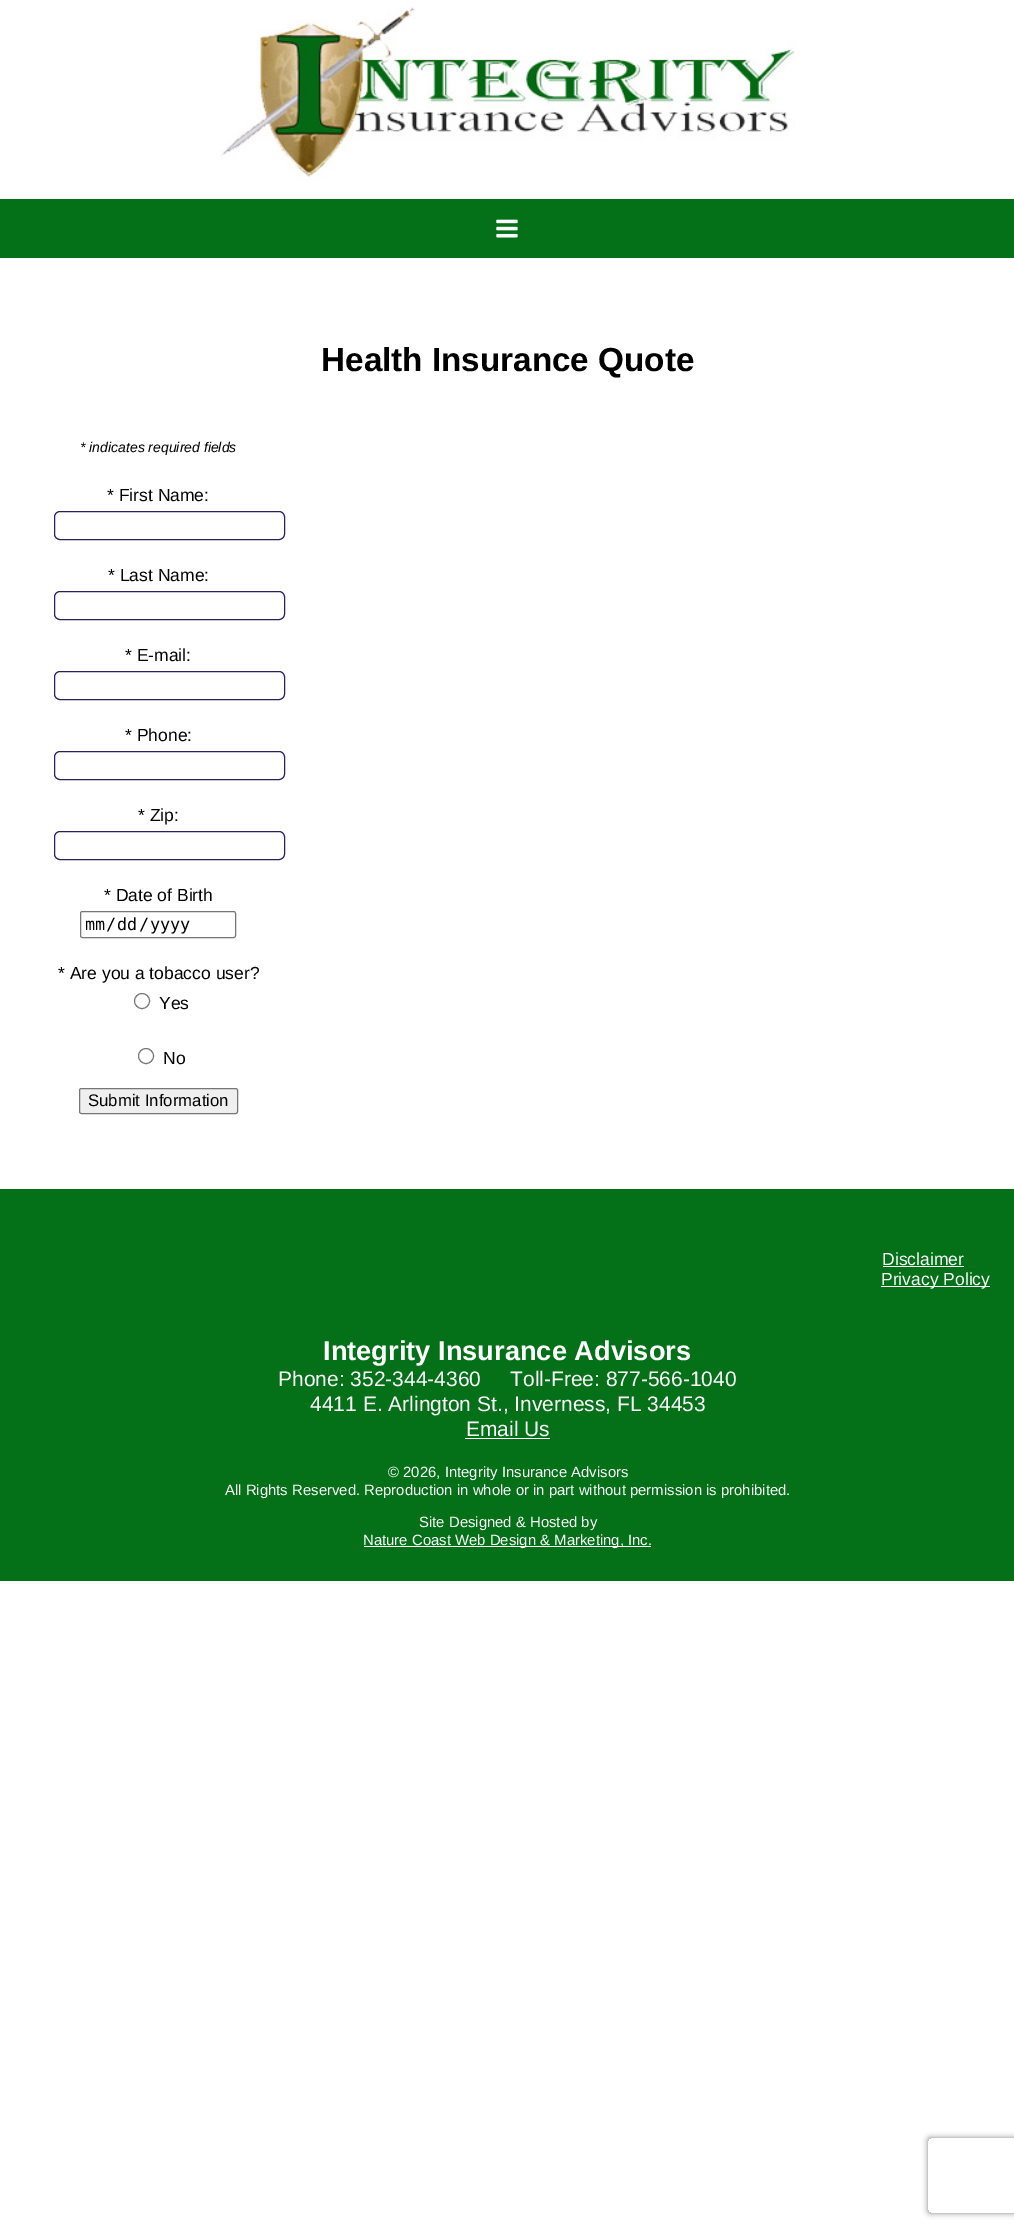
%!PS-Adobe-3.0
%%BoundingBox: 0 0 1014 2230
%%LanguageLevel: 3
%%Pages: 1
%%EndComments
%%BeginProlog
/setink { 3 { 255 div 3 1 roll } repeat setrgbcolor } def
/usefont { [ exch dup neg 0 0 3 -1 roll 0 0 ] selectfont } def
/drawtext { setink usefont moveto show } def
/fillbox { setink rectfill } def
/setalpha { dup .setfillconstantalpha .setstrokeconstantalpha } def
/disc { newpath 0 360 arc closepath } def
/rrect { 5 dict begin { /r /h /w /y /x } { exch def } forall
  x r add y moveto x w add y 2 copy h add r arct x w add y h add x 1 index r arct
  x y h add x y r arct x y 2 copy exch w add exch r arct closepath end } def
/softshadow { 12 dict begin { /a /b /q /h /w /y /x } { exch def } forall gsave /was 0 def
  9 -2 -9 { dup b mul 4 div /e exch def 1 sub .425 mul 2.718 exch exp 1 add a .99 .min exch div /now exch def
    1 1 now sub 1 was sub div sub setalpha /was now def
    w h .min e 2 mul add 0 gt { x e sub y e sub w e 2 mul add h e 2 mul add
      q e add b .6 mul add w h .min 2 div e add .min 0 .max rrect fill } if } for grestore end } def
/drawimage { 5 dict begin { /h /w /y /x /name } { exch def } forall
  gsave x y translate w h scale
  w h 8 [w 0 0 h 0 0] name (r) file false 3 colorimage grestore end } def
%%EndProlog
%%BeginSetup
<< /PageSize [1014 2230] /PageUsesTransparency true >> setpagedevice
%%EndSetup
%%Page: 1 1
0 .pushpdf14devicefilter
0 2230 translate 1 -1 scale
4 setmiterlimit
0 0 1014 2230 255 255 255 fillbox
(assets/img1.rgb) 220 0 576 180 drawimage
0 199 1014 59 4 112 24 fillbox
(assets/img2.rgb) 496 219 22 19 drawimage
(Health Insurance Quote) 321 371 /LiberationSans-Bold 33.25 0 0 0 drawtext
(* indicates required fields) 80 452 /LiberationSans-Italic 14 0 0 0 drawtext
(* First Name:) 107 501 /LiberationSans-Regular 17.5 0 0 0 drawtext
40 33 97 setink
54.5 511.5 230 28 5.5 rrect stroke
(* Last Name:) 108 581 /LiberationSans-Regular 17.5 0 0 0 drawtext
40 33 97 setink
54.5 591.5 230 28 5.5 rrect stroke
(* E-mail:) 125 661 /LiberationSans-Regular 17.5 0 0 0 drawtext
40 33 97 setink
54.5 671.5 230 28 5.5 rrect stroke
(* Phone:) 125 741 /LiberationSans-Regular 17.5 0 0 0 drawtext
40 33 97 setink
54.5 751.5 230 28 5.5 rrect stroke
(* Zip:) 138 821 /LiberationSans-Regular 17.5 0 0 0 drawtext
40 33 97 setink
54.5 831.5 230 28 5.5 rrect stroke
(* Date of Birth) 104 901 /LiberationSans-Regular 17.5 0 0 0 drawtext
118 118 118 setink
80.5 911.5 155 26 2 rrect stroke
(mm) 85 930 /DejaVuSansMono-Regular 16.75 0 0 0 drawtext
(/) 106 930 /DejaVuSansMono-Regular 16.75 0 0 0 drawtext
(dd) 117 930 /DejaVuSansMono-Regular 16.75 0 0 0 drawtext
(/) 139 930 /DejaVuSansMono-Regular 16.75 0 0 0 drawtext
(yyyy) 150 930 /DejaVuSansMono-Regular 16.75 0 0 0 drawtext
(* Are you a tobacco user?) 58 979 /LiberationSans-Regular 17.5 0 0 0 drawtext
118 118 118 setink
142 1001 7.5 disc stroke
(Yes) 159 1009 /LiberationSans-Regular 17.5 0 0 0 drawtext
118 118 118 setink
146 1056 7.5 disc stroke
(No) 163 1064 /LiberationSans-Regular 17.5 0 0 0 drawtext
239 239 239 setink
79.5 1088.5 158 25 2 rrect gsave fill grestore
118 118 118 setink
stroke
(Submit Information) 88 1106 /LiberationSans-Regular 16.75 0 0 0 drawtext
0 1189 1014 392 4 112 24 fillbox
(Disclaimer) 882 1265 /LiberationSans-Regular 17.5 255 255 255 drawtext
883 1266 81 1 255 255 255 fillbox
881 1286 109 1 255 255 255 fillbox
(Privacy Policy) 881 1285 /LiberationSans-Regular 17.5 255 255 255 drawtext
(Integrity Insurance Advisors) 323 1360 /LiberationSans-Bold 27.25 255 255 255 drawtext
(Phone: 352-344-4360) 278 1386 /LiberationSans-Regular 21 255 255 255 drawtext
(Toll-Free: 877-566-1040) 510 1386 /LiberationSans-Regular 21 255 255 255 drawtext
(4411 E. Arlington St., Inverness, FL 34453) 310 1411 /LiberationSans-Regular 21 255 255 255 drawtext
(Email Us) 466 1436 /LiberationSans-Regular 21 255 255 255 drawtext
465 1438 85 1 255 255 255 fillbox
(© 2026, Integrity Insurance Advisors) 388 1477 /LiberationSans-Regular 14.9 255 255 255 drawtext
(All Rights Reserved. Reproduction in whole or in part without permission is prohibited.) 225 1495 /LiberationSans-Regular 14.9 255 255 255 drawtext
(Site Designed & Hosted by) 419 1527 /LiberationSans-Regular 14.9 255 255 255 drawtext
364 1546 287 1 255 255 255 fillbox
(Nature Coast Web Design & Marketing, Inc.) 363 1545 /LiberationSans-Regular 14.9 255 255 255 drawtext
gsave
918 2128 moveto 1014 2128 lineto 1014 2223 lineto 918 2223 lineto closepath 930.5 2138 moveto 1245.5 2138 lineto 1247 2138 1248 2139 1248 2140.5 curveto 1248 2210.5 lineto 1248 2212 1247 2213 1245.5 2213 curveto 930.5 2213 lineto 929 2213 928 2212 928 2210.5 curveto 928 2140.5 lineto 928 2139 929 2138 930.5 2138 curveto closepath eoclip newpath
128 128 128 setink
928 2138 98 75 2.5 3 1 softshadow
grestore
.poppdf14devicefilter showpage
%%EOF
